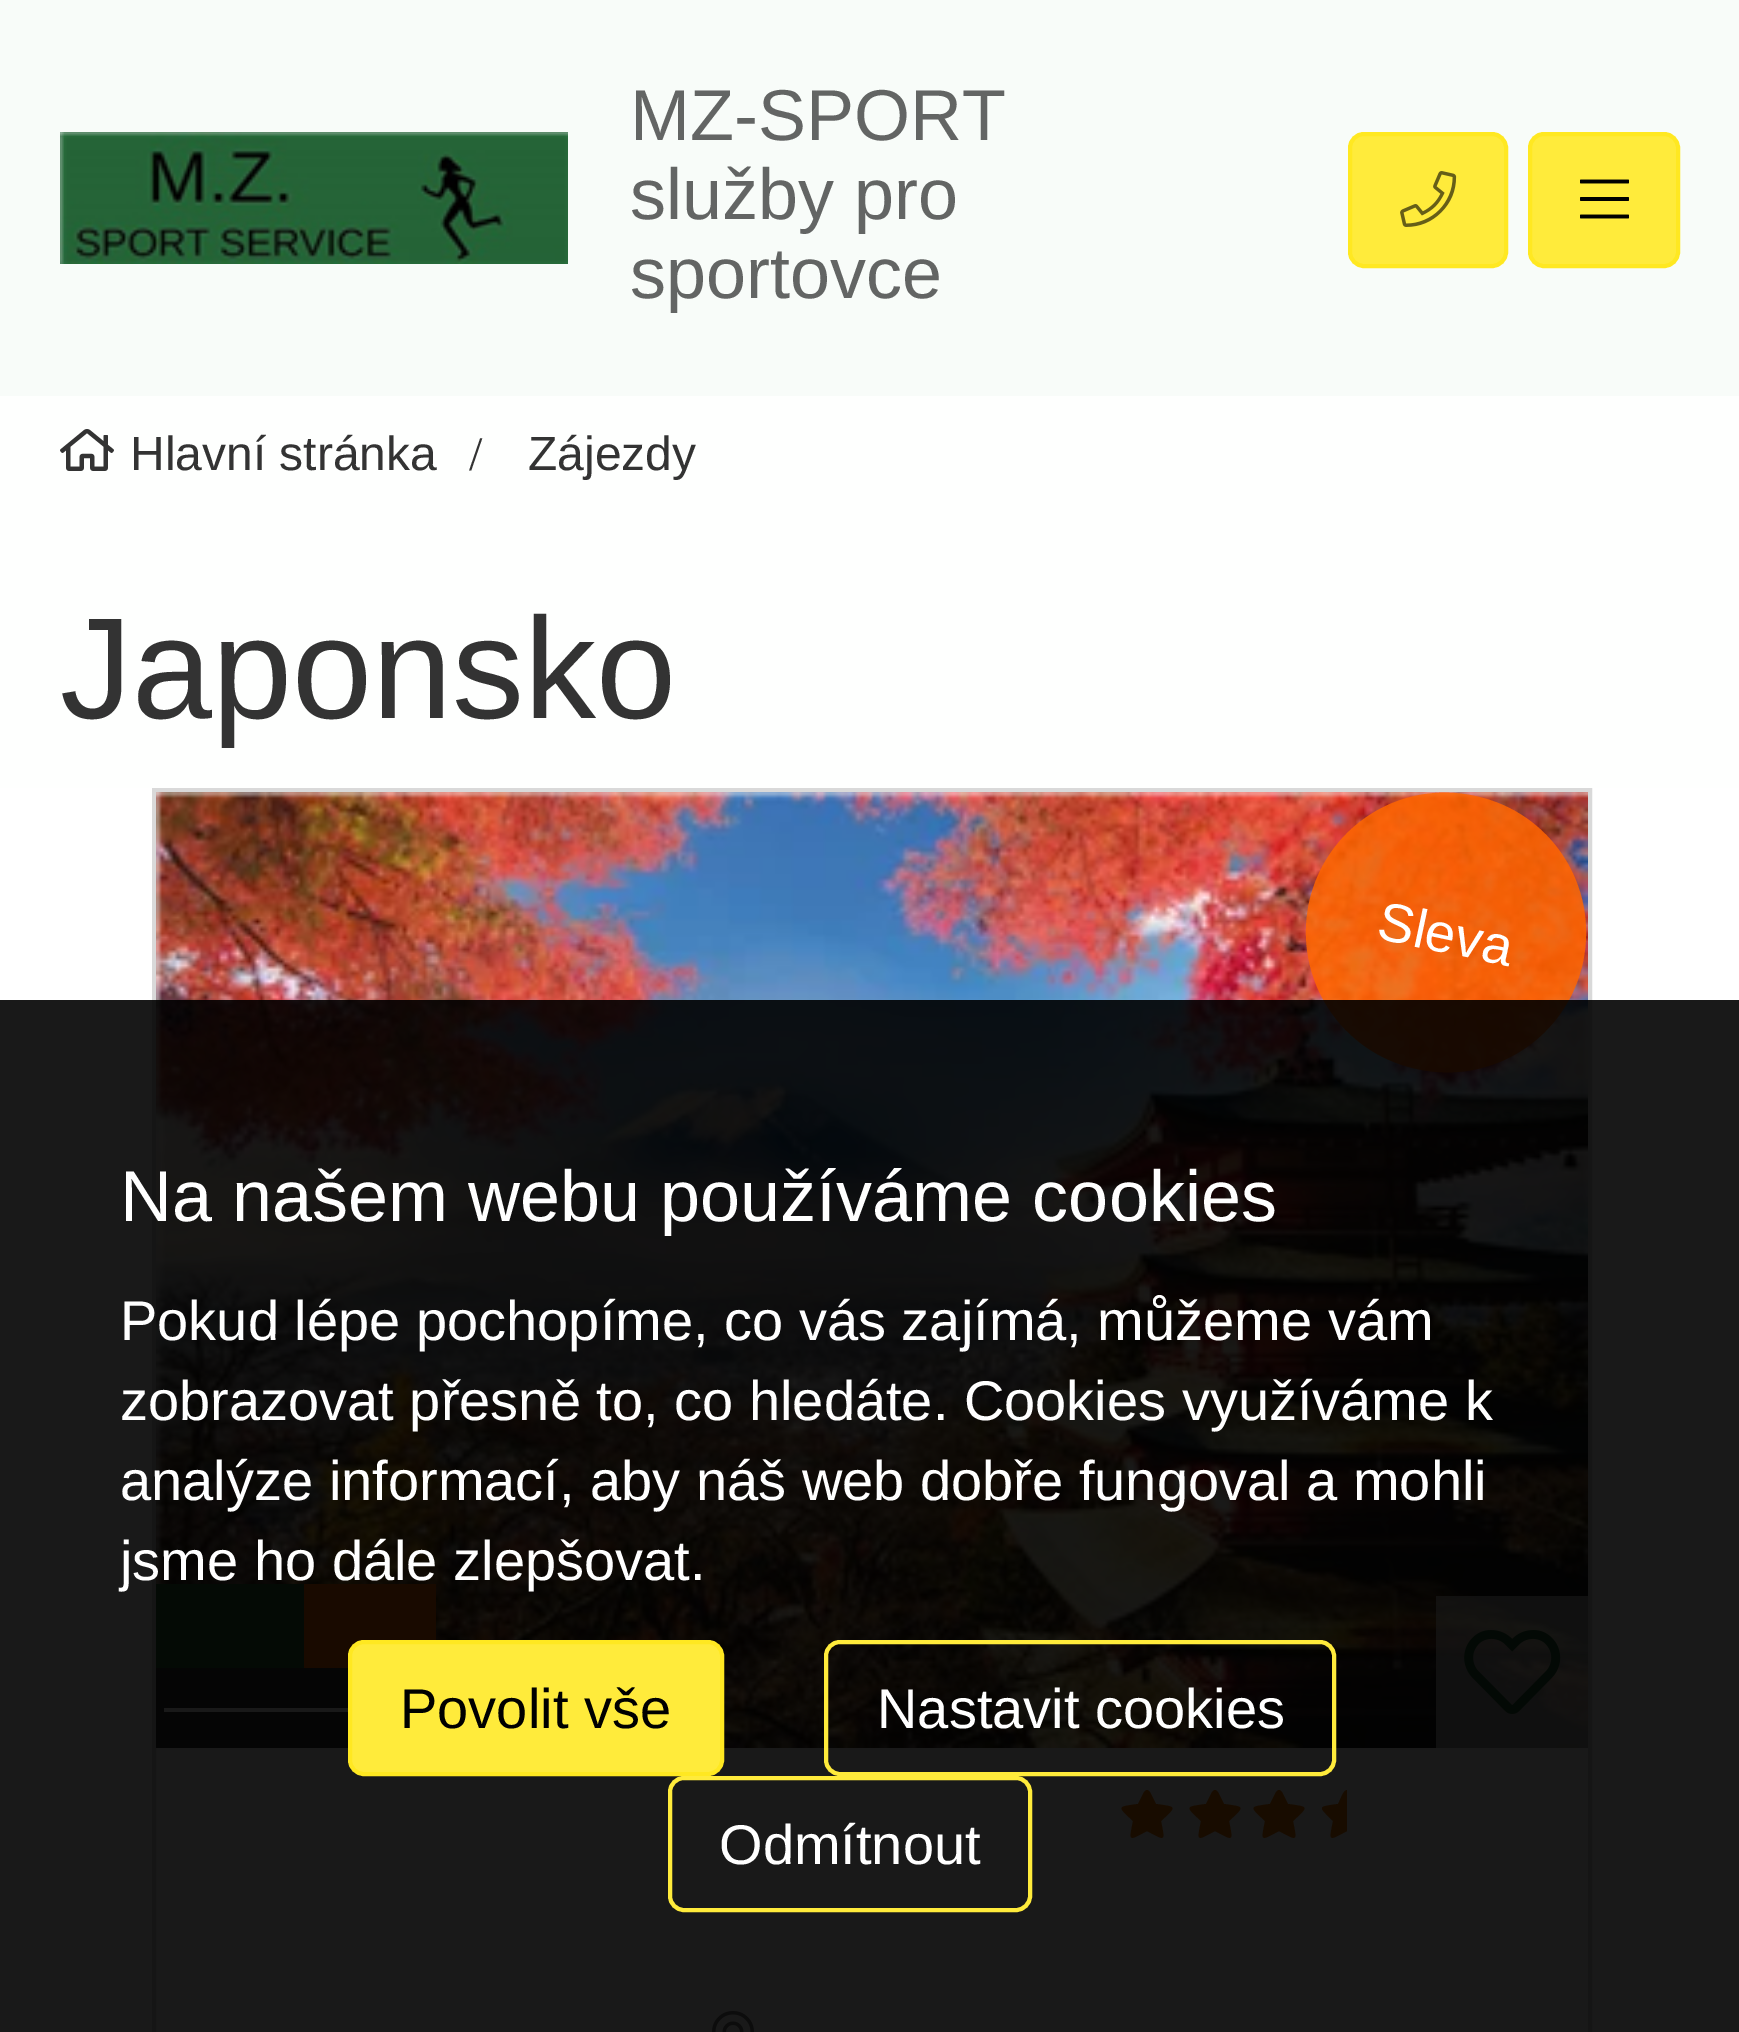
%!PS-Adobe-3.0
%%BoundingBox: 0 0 1739 2032
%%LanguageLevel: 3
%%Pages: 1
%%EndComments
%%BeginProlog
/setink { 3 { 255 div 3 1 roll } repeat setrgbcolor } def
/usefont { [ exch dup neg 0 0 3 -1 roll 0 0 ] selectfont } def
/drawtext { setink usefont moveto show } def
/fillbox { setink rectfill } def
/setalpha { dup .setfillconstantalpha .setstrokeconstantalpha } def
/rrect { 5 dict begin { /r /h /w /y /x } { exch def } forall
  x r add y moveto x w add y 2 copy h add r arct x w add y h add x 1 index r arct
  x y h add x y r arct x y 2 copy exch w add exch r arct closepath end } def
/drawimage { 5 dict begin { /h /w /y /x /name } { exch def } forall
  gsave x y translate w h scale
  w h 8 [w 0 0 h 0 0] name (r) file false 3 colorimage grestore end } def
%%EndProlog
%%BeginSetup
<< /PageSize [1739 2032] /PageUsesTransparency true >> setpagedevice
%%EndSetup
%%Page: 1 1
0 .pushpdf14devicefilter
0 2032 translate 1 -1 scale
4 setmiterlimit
0 0 1739 2032 248 252 249 fillbox
0 2004 1739 28 254 255 254 fillbox
60 132 508 132 255 255 255 fillbox
(assets/img1.rgb) 60 132 508 132 drawimage
(MZ-SPORT) 630 140 /LiberationSans-Regular 72 99 101 100 drawtext
(služby pro) 630 219 /LiberationSans-Regular 72 99 101 100 drawtext
(sportovce) 630 298 /LiberationSans-Regular 72 99 101 100 drawtext
255 235 59 setink
1350 134 156 132 14 rrect gsave fill grestore
255 232 33 setink
4 setlinewidth
stroke
(assets/img2.rgb) 1400 171 57 56 drawimage
255 235 59 setink
1530 134 148 132 14 rrect gsave fill grestore
255 232 33 setink
stroke
(assets/img3.rgb) 1580 179 49 40 drawimage
gsave 0 396 moveto 1739 396 lineto 1739 788 lineto 0 788 lineto closepath clip newpath
<< /ShadingType 2 /ColorSpace /DeviceRGB /Coords [870 2004 870 396] /Extend [true true] /Function << /FunctionType 3 /Domain [0 1] /Functions [<< /FunctionType 2 /Domain [0 1] /C0 [0.973 0.988 0.976] /C1 [1 1 1] /N 1 >> << /FunctionType 2 /Domain [0 1] /C0 [1 1 1] /C1 [0.996 1 0.996] /N 1 >>] /Bounds [0.3] /Encode [0 1 0 1] >> >> shfill grestore
gsave 0 788 moveto 1739 788 lineto 1739 2004 lineto 0 2004 lineto closepath clip newpath
<< /ShadingType 2 /ColorSpace /DeviceRGB /Coords [870 2004 870 396] /Extend [true true] /Function << /FunctionType 3 /Domain [0 1] /Functions [<< /FunctionType 2 /Domain [0 1] /C0 [0.996 1 0.996] /C1 [1 1 1] /N 1 >> << /FunctionType 2 /Domain [0 1] /C0 [1 1 1] /C1 [1 1 1] /N 1 >>] /Bounds [0.3] /Encode [0 1 0 1] >> >> shfill grestore
(assets/img4.rgb) 60 429 54 42 drawimage
(Hlavní stránka) 130 470 /LiberationSans-Regular 48 51 51 51 drawtext
(/) 469 470 /LiberationSerif-Regular 48 51 51 51 drawtext
(Zájezdy) 528 470 /LiberationSans-Regular 48 51 51 51 drawtext
(Japonsko) 60 718 /LiberationSans-Regular 144 51 51 51 drawtext
217 217 217 setink
154 790 1436 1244 rectstroke
(assets/img5.rgb) 156 792 1432 956 drawimage
0.85 setalpha
255 102 0 setink
1475 796 moveto 1551 812 1599 886 1583 962 curveto 1567 1037 1493 1086 1417 1069 curveto 1341 1053 1293 979 1309 903 curveto 1325 828 1399 779 1475 796 curveto closepath fill
/LiberationSans-Regular 54.5 usefont
1 setalpha
255 255 255 setink
gsave 1375 938 translate 12 rotate 0 0 moveto (Sleva) show grestore
156 1584 148 84 38 101 55 fillbox
304 1584 132 84 255 102 0 fillbox
156 1668 192 80 51 51 51 fillbox
164 1708 184 4 255 255 255 fillbox
0.6 setalpha
1436 1596 152 152 255 255 255 fillbox
1 setalpha
(assets/img6.rgb) 1464 1630 97 84 drawimage
245 124 0 setink
1144 1792 moveto 1145 1791 1146 1790 1147 1790 curveto 1148 1790 1149 1791 1150 1792 curveto 1156 1804 lineto 1177 1807 1177 1806 1161 1821 curveto 1165 1842 1166 1841 1147 1831 curveto 1128 1841 1129 1842 1133 1821 curveto 1117 1806 1117 1807 1138 1804 curveto closepath fill
1212 1792 moveto 1213 1791 1214 1790 1215 1790 curveto 1216 1790 1217 1791 1218 1792 curveto 1224 1804 lineto 1245 1807 1245 1806 1229 1821 curveto 1233 1842 1234 1841 1215 1831 curveto 1196 1841 1197 1842 1201 1821 curveto 1185 1806 1185 1807 1206 1804 curveto closepath fill
1276 1792 moveto 1277 1791 1278 1790 1279 1790 curveto 1280 1790 1281 1791 1282 1792 curveto 1288 1804 lineto 1309 1807 1309 1806 1293 1821 curveto 1297 1842 1298 1841 1279 1831 curveto 1260 1841 1261 1842 1265 1821 curveto 1249 1806 1249 1807 1270 1804 curveto closepath fill
1347 1790 moveto 1347 1831 lineto 1328 1841 1329 1842 1333 1821 curveto 1318 1806 1317 1807 1338 1804 curveto 1340 1801 1343 1790 1347 1790 curveto closepath fill
(assets/img7.rgb) 712 2011 42 21 drawimage
0.9 setalpha
0 1000 1739 1032 0 0 0 fillbox
1 setalpha
(Na našem webu používáme cookies) 120 1221 /LiberationSans-Regular 72 255 255 255 drawtext
(Pokud lépe pochopíme, co vás zajímá, můžeme vám) 120 1340 /LiberationSans-Regular 56 255 255 255 drawtext
(zobrazovat přesně to, co hledáte. Cookies využíváme k) 120 1420 /LiberationSans-Regular 56 255 255 255 drawtext
(analýze informací, aby náš web dobře fungoval a mohli) 120 1500 /LiberationSans-Regular 56 255 255 255 drawtext
(jsme ho dále zlepšovat.) 120 1580 /LiberationSans-Regular 56 255 255 255 drawtext
255 235 59 setink
350 1642 372 132 14 rrect gsave fill grestore
255 232 33 setink
stroke
(Povolit vše) 400 1728 /LiberationSans-Regular 56 0 0 0 drawtext
255 235 59 setink
826 1642 508 132 14 rrect stroke
(Nastavit cookies) 877 1728 /LiberationSans-Regular 56 255 255 255 drawtext
255 235 59 setink
670 1778 360 132 14 rrect stroke
(Odmítnout) 719 1864 /LiberationSans-Regular 56 255 255 255 drawtext
.poppdf14devicefilter showpage
%%EOF
